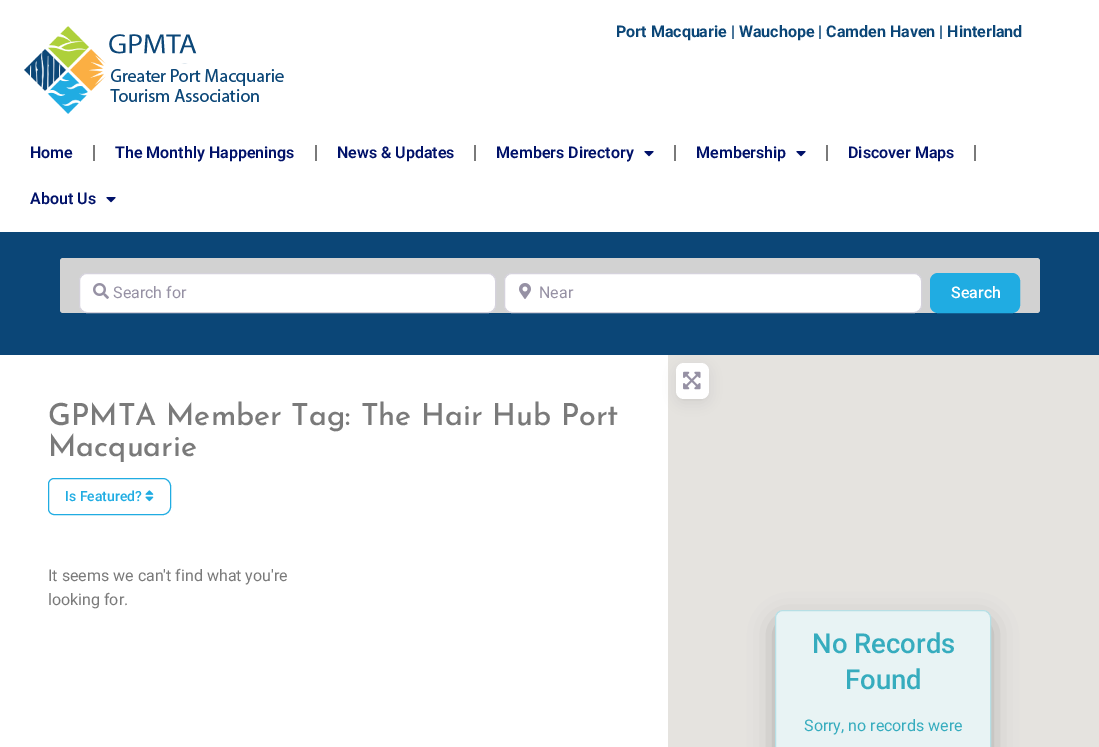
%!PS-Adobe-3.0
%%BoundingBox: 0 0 1099 747
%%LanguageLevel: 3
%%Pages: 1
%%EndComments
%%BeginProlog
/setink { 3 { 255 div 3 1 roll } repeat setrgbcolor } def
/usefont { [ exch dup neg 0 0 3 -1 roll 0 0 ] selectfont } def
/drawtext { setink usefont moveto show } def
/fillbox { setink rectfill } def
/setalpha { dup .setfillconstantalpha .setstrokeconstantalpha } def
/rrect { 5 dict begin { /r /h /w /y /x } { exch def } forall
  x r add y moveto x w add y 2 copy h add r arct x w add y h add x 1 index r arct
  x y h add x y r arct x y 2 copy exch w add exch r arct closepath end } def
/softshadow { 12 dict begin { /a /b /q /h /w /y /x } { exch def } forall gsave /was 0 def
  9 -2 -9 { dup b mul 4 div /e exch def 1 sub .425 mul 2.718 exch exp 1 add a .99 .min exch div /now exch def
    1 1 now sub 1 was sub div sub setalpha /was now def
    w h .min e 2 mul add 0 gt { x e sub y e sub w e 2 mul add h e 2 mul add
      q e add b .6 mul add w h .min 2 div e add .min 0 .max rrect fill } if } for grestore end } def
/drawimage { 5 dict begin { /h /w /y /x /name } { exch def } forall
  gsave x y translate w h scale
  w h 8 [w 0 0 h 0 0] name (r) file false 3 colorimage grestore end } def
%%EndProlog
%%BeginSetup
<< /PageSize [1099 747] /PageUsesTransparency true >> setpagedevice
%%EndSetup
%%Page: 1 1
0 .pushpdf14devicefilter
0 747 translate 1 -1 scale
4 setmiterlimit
0 0 1099 747 255 255 255 fillbox
(assets/img1.rgb) 24 26 260 88 drawimage
(Port Macquarie | Wauchope | Camden Haven | Hinterland) 616 37 /Roboto-Bold 16 11 70 119 drawtext
(Home) 30 158 /Roboto-SemiBold 16 0 17 105 drawtext
93 145 2 16 122 122 122 fillbox
(The Monthly Happenings) 115 158 /Roboto-SemiBold 16 0 17 105 drawtext
315 145 2 16 122 122 122 fillbox
(News & Updates) 337 158 /Roboto-SemiBold 16 0 17 105 drawtext
474 145 2 16 122 122 122 fillbox
(Members Directory) 496 158 /Roboto-SemiBold 16 0 17 105 drawtext
(assets/img2.rgb) 644 151 10 6 drawimage
674 145 2 16 122 122 122 fillbox
(Membership) 696 158 /Roboto-SemiBold 16 0 17 105 drawtext
(assets/img2.rgb) 796 151 10 6 drawimage
826 145 2 16 122 122 122 fillbox
(Discover Maps) 848 158 /Roboto-SemiBold 16 0 17 105 drawtext
974 145 2 16 122 122 122 fillbox
(About Us) 30 204 /Roboto-SemiBold 16 0 17 105 drawtext
(assets/img2.rgb) 106 197 10 6 drawimage
0 232 1099 123 11 70 119 fillbox
210 210 210 setink
60 258 980 55 3 rrect fill
255 255 255 setink
79.5 273.5 416 39 7.5 rrect gsave fill grestore
213 210 220 setink
stroke
(assets/img3.rgb) 93 283 16 16 drawimage
(Search for) 113 298 /Roboto-Regular 16 150 145 164 drawtext
255 255 255 setink
504.5 273.5 417 39 7.5 rrect gsave fill grestore
213 210 220 setink
stroke
(assets/img4.rgb) 519 283 12 16 drawimage
(Near) 539 298 /Roboto-Regular 16 150 145 164 drawtext
32 172 226 setink
930.5 273.5 89 39 7.5 rrect gsave fill grestore
stroke
(Search) 951 298 /Roboto-Medium 16 255 255 255 drawtext
(GPMTA Member Tag: The Hair Hub Port) 48 425 /JosefinSans-Medium 30.4 122 122 122 drawtext
(Macquarie) 48 456 /JosefinSans-Medium 30.4 122 122 122 drawtext
32 172 226 setink
54 478.5 moveto 163 478.5 lineto 167 478.5 170.5 482 170.5 486 curveto 170.5 507 lineto 170.5 511 167 514.5 163 514.5 curveto 54 514.5 lineto 51 514.5 48.5 512 48.5 509 curveto 48.5 484 lineto 48.5 481 51 478.5 54 478.5 curveto closepath stroke
(Is Featured?) 65 501 /Roboto-Medium 14 32 172 226 drawtext
(assets/img5.rgb) 145 490 9 12 drawimage
(It seems we can't find what you're) 48 581 /Roboto-Regular 16 122 122 122 drawtext
(looking for.) 48 605 /Roboto-Regular 16 122 122 122 drawtext
668 355 431 392 229 227 223 fillbox
31 27 45 setink
676 367 33 36 8 6 0.08 softshadow
678 367 29 32 6 1 0.08 softshadow
255 255 255 setink
676 363 33 36 8 rrect fill
(assets/img6.rgb) 683 371 18 19 drawimage
34 34 33 setink
775 620 216 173 8 12.5 0.3 softshadow
232 243 244 setink
775.5 610.5 215 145 7.5 rrect gsave fill grestore
182 223 229 setink
stroke
(No Records) 812 653 /Roboto-Medium 27.5 54 172 190 drawtext
(Found) 845 689 /Roboto-Medium 27.5 54 172 190 drawtext
(Sorry, no records were) 804 731 /Roboto-Regular 16 54 172 190 drawtext
.poppdf14devicefilter showpage
%%EOF
